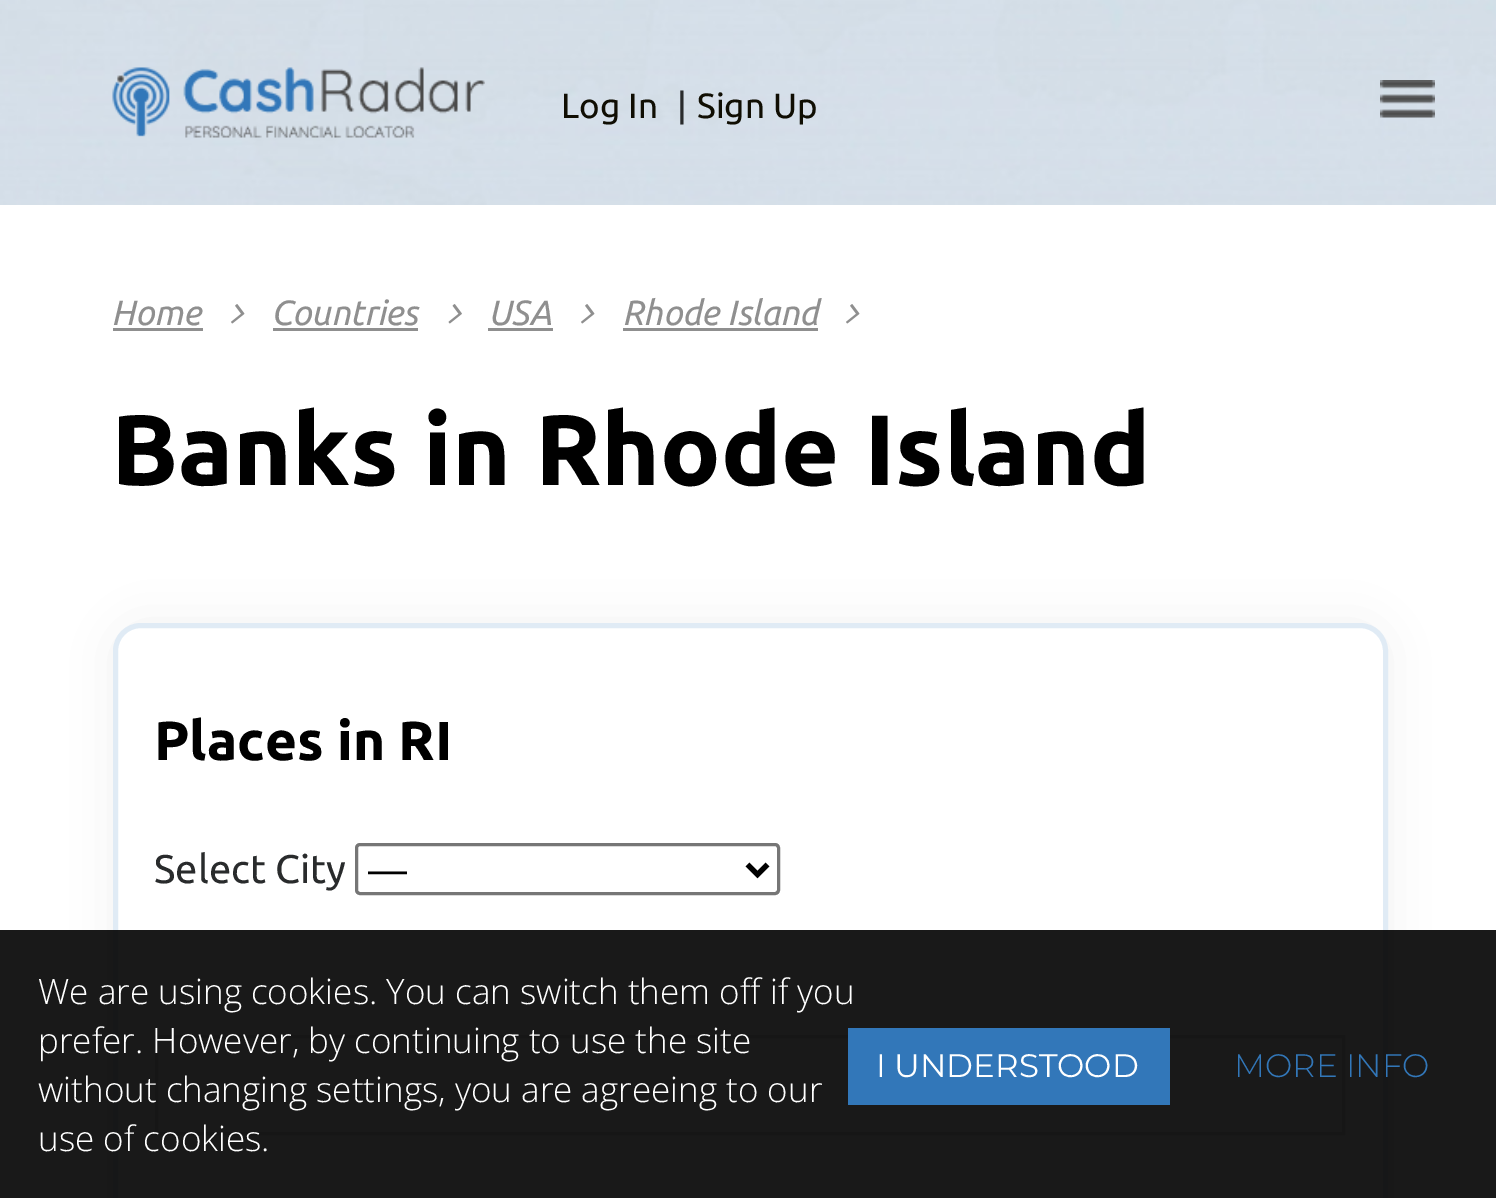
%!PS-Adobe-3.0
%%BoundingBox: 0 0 1496 1198
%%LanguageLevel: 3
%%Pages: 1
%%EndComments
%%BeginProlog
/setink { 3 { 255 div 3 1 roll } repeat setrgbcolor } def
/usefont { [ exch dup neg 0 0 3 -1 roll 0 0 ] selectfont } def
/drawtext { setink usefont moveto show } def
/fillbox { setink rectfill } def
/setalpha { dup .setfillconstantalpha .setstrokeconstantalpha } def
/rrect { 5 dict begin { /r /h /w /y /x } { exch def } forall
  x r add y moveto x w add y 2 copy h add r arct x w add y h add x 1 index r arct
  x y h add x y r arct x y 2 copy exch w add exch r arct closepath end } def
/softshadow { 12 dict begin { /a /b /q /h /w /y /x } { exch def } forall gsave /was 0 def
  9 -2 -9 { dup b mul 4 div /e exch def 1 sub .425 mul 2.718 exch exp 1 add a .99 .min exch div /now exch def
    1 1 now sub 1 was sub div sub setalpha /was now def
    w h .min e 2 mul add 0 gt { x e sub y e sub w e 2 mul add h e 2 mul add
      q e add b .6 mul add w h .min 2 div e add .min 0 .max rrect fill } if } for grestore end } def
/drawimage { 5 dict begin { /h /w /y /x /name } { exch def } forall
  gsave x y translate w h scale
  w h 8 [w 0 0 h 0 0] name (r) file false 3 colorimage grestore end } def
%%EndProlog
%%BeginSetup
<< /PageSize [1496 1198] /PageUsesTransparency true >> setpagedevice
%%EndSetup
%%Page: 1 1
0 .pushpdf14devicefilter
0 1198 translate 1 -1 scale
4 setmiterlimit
0 0 1496 1198 255 255 255 fillbox
(assets/img1.rgb) 0 0 1496 205 drawimage
(assets/img2.rgb) 112 67 373 71 drawimage
(Log In) 561 118 /Ubuntu-Regular 35 16 14 3 drawtext
(|) 677 118 /Ubuntu-Regular 35 41 43 44 drawtext
(Sign Up) 697 118 /Ubuntu-Regular 35 16 14 3 drawtext
(assets/img3.rgb) 1380 80 55 38 drawimage
(Home) 111 325 /Ubuntu-Italic 35 143 143 143 drawtext
113 328 90 3 143 143 143 fillbox
(assets/img4.rgb) 231 304 14 20 drawimage
(Countries) 271 325 /Ubuntu-Italic 35 143 143 143 drawtext
273 328 145 3 143 143 143 fillbox
(assets/img5.rgb) 448 304 14 20 drawimage
(USA) 488 325 /Ubuntu-Italic 35 143 143 143 drawtext
488 328 65 3 143 143 143 fillbox
(assets/img4.rgb) 581 304 14 20 drawimage
(Rhode Island) 622 325 /Ubuntu-Italic 35 143 143 143 drawtext
623 328 195 3 143 143 143 fillbox
(assets/img4.rgb) 846 304 14 20 drawimage
(Banks in Rhode Island) 111 485 /Ubuntu-Bold 100 0 0 0 drawtext
113 623 1275 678 28 25 0.06 softshadow
255 255 255 setink
115.5 625.5 1270 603 25.5 rrect gsave fill grestore
224 235 245 setink
5 setlinewidth
stroke
(Places in RI) 154 760 /Ubuntu-Bold 55 0 0 0 drawtext
(Select City) 154 883 /Ubuntu-Regular 40 41 43 44 drawtext
118 118 118 setink
3 setlinewidth
356.5 844.5 422 49 3.5 rrect stroke
0 0 0 setink
5 setlinewidth
747.5 864.5 moveto 757.5 874.5 lineto 767.5 864.5 lineto stroke
gsave
368 845 370 48 rectclip
(—) 367 883 /LiberationSans-Regular 40 0 0 0 drawtext
grestore
226 226 226 setink
3 setlinewidth
156.5 1036.5 1187 97 rectstroke
0.9 setalpha
0 930 1496 268 0 0 0 fillbox
1 setalpha
(We are using cookies. You can switch them off if you) 38 1004 /OpenSans-Light 35 255 255 255 drawtext
(prefer. However, by continuing to use the site) 38 1053 /OpenSans-Light 35 255 255 255 drawtext
(without changing settings, you are agreeing to our) 38 1102 /OpenSans-Light 35 255 255 255 drawtext
(use of cookies.) 38 1151 /OpenSans-Light 35 255 255 255 drawtext
848 1028 322 77 50 119 185 fillbox
(I UNDERSTOOD) 876 1077 /Montserrat-Regular 32.5 255 255 255 drawtext
(MORE INFO) 1234 1077 /Montserrat-Light 32.5 50 119 185 drawtext
.poppdf14devicefilter showpage
%%EOF
